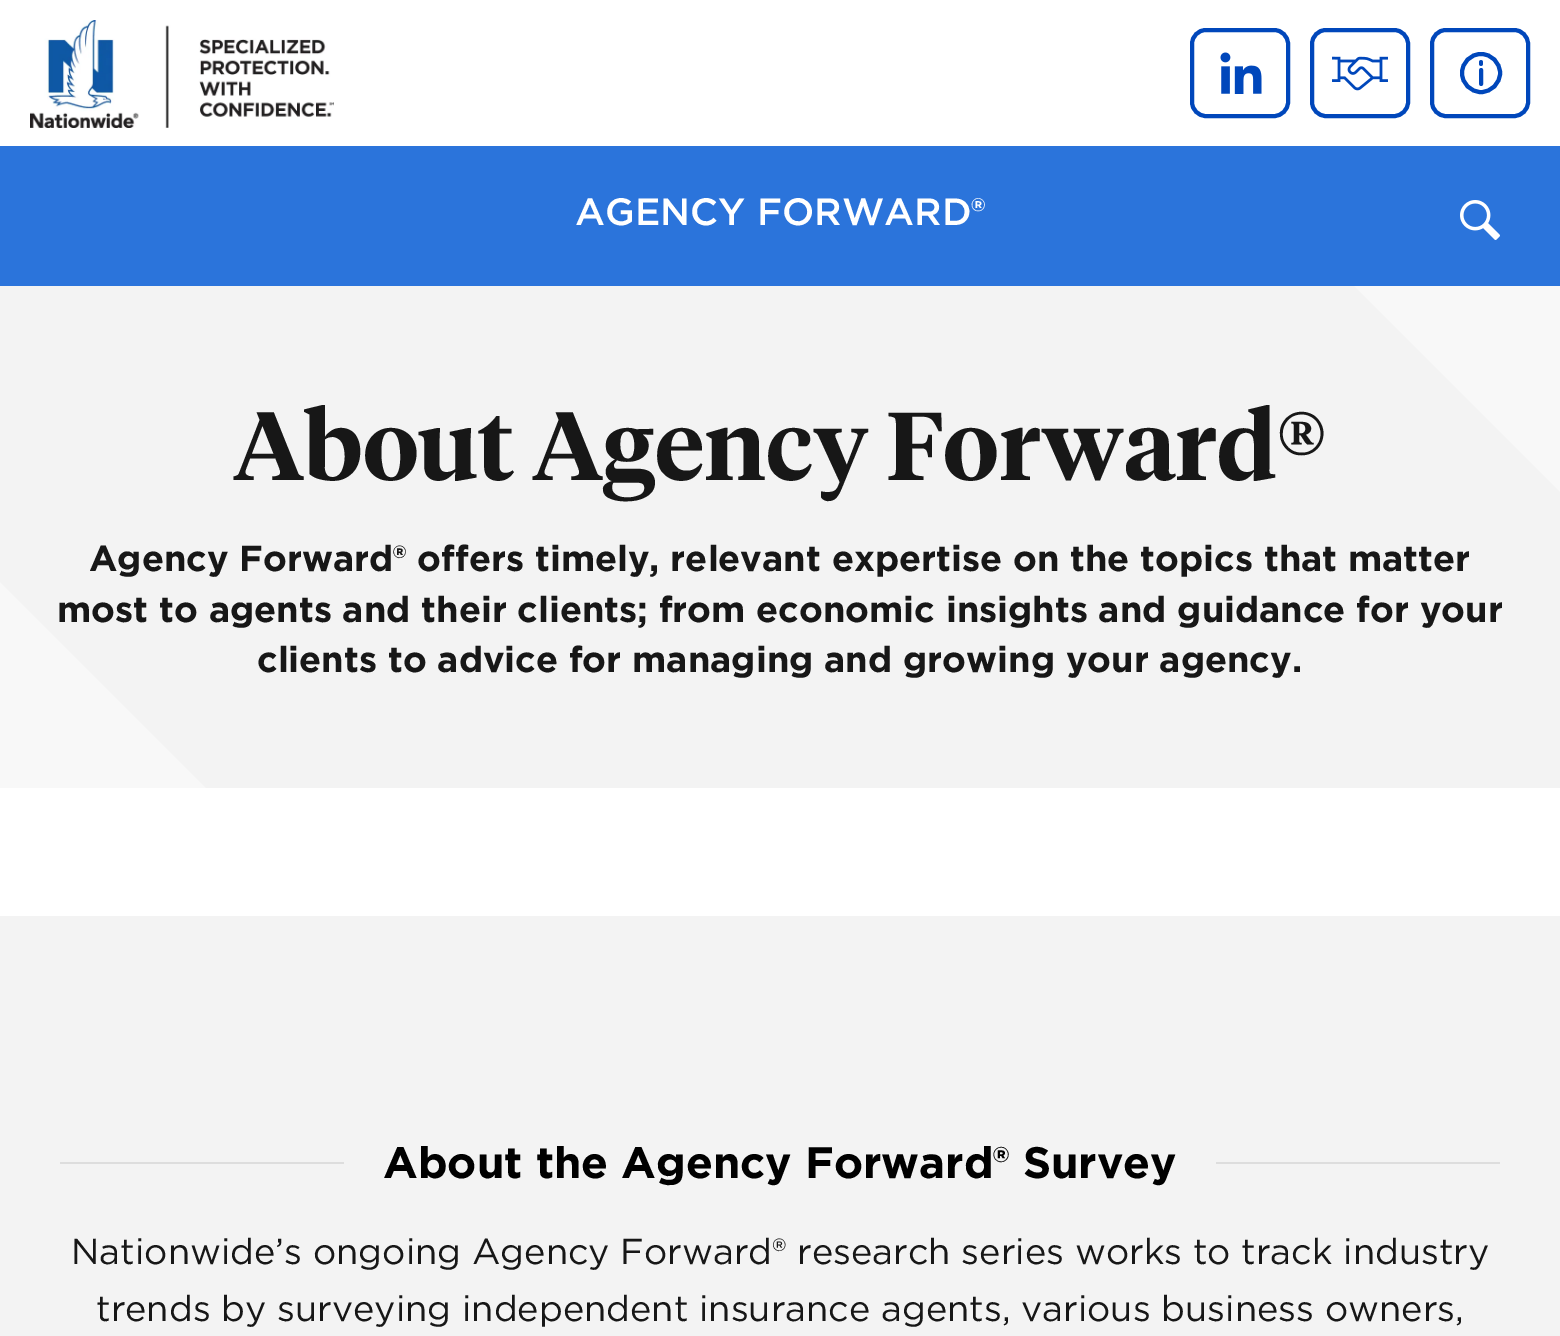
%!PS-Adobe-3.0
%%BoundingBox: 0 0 1560 1336
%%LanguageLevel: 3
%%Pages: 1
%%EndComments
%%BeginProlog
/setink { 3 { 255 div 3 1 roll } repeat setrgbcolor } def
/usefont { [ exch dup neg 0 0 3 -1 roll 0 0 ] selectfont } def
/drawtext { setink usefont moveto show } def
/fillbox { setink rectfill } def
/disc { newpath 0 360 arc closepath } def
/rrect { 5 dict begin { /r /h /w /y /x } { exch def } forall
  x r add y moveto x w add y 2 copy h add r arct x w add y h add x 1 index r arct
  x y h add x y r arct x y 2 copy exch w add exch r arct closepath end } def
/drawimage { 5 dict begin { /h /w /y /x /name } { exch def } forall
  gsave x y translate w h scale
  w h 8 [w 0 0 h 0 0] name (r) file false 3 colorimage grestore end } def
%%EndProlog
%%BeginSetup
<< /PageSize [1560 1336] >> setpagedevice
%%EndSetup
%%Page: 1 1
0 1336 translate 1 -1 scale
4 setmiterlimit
0 0 1560 1336 255 255 255 fillbox
(assets/img1.rgb) 30 20 304 108 drawimage
0 71 187 setink
4 setlinewidth
1192 30 96 86 14 rrect stroke
(assets/img2.rgb) 1220 52 42 42 drawimage
1312 30 96 86 14 rrect stroke
(assets/img3.rgb) 1332 56 56 35 drawimage
1432 30 96 86 14 rrect stroke
1481 73 19 disc stroke
3.9 setlinewidth
1 setlinecap
1 setlinejoin
1481 70 moveto 1481 84 lineto stroke
3.8 setlinewidth
1481 62 moveto 1481 64 lineto stroke
0 146 1560 140 43 116 219 fillbox
(AGENCY FORWARD®) 575 225 /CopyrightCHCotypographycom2-Light 38 255 255 255 drawtext
(assets/img4.rgb) 1460 200 40 40 drawimage
gsave 0 286 moveto 1560 286 lineto 1560 788 lineto 0 788 lineto closepath clip newpath
<< /ShadingType 2 /ColorSpace /DeviceRGB /Coords [265 1053 1296 22] /Extend [true true] /Function << /FunctionType 3 /Domain [0 1] /Functions [<< /FunctionType 2 /Domain [0 1] /C0 [0.973 0.973 0.973] /C1 [0.973 0.973 0.973] /N 1 >> << /FunctionType 2 /Domain [0 1] /C0 [0.953 0.953 0.953] /C1 [0.953 0.953 0.953] /N 1 >> << /FunctionType 2 /Domain [0 1] /C0 [0.973 0.973 0.973] /C1 [0.973 0.973 0.973] /N 1 >>] /Bounds [0.1 0.9] /Encode [0 1 0 1 0 1] >> >> shfill grestore
(About Agency Forward®) 233 480 /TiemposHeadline-SemiBold 96 23 23 23 drawtext
(Agency Forward® offers timely, relevant expertise on the topics that matter) 89 571 /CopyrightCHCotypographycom-Regular 36 23 23 23 drawtext
(most to agents and their clients; from economic insights and guidance for your) 57 622 /CopyrightCHCotypographycom-Regular 36 23 23 23 drawtext
(clients to advice for managing and growing your agency.) 257 672 /CopyrightCHCotypographycom-Regular 36 23 23 23 drawtext
0 916 1560 420 243 243 243 fillbox
60 1162 284 2 221 221 221 fillbox
(About the Agency Forward® Survey) 383 1178 /CopyrightCHCotypographycom-Regular 44 0 0 0 drawtext
1216 1162 284 2 221 221 221 fillbox
(Nationwide’s ongoing Agency Forward® research series works to track industry) 71 1264 /CopyrightCHCotypographycom-Light 36 23 23 23 drawtext
(trends by surveying independent insurance agents, various business owners,) 96 1321 /CopyrightCHCotypographycom-Light 36 23 23 23 drawtext
showpage
%%EOF
